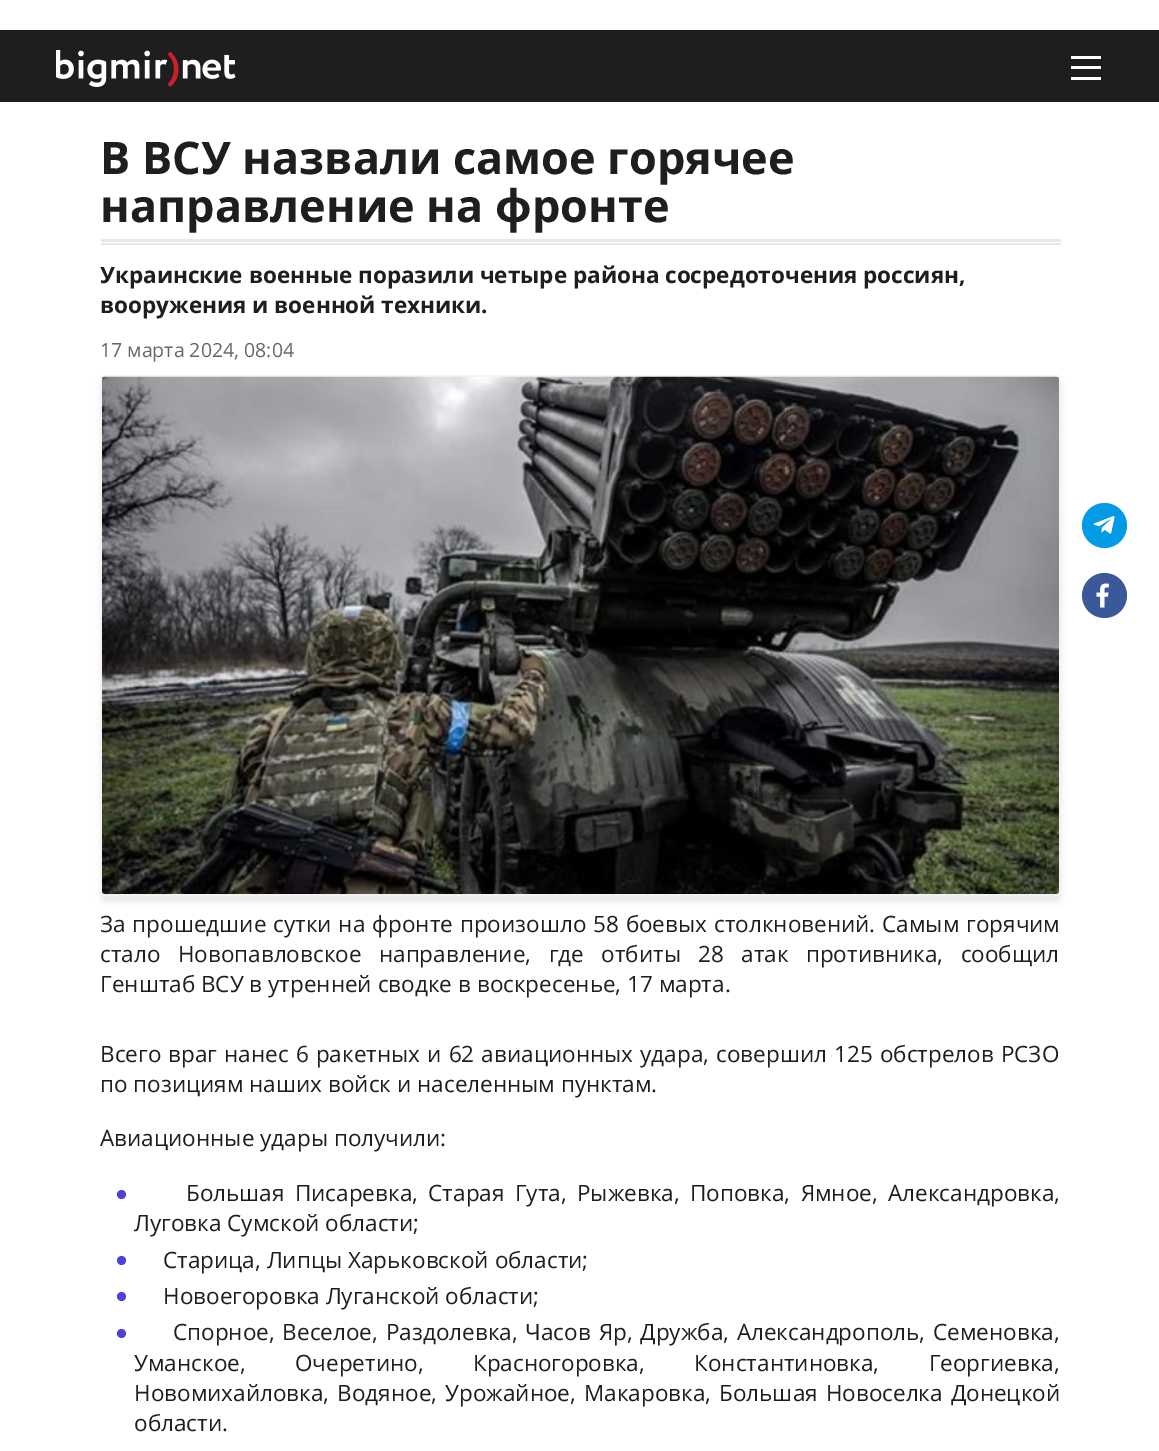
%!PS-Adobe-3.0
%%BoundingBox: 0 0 1159 1451
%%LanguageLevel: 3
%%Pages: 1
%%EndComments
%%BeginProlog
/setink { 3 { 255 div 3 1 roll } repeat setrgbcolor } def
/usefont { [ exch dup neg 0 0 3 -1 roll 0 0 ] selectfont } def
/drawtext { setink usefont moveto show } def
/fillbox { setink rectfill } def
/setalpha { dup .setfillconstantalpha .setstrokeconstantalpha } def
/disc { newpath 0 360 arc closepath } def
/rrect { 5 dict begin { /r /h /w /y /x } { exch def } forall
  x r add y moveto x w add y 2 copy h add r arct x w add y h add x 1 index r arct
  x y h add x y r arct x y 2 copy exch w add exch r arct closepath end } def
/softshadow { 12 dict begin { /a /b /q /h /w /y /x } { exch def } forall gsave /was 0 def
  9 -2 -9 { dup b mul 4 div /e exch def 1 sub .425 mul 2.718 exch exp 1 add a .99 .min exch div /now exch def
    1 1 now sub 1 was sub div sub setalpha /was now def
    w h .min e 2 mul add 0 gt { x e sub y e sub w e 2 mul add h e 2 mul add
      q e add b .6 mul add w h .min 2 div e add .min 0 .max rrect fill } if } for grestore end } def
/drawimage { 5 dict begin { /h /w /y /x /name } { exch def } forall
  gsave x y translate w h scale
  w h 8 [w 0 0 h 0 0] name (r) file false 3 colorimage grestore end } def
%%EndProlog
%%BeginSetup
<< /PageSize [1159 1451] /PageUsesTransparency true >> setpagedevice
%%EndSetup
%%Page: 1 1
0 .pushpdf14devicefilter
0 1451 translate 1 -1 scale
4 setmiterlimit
0 0 1159 1451 255 255 255 fillbox
0 30 1159 72 30 30 30 fillbox
(assets/img1.rgb) 56 50 180 37 drawimage
1071 56 30 3 255 255 255 fillbox
1071 66 30 3 255 255 255 fillbox
1071 77 30 3 255 255 255 fillbox
101 243 960 2 234 231 231 fillbox
(В ВСУ назвали самое горячее) 100 174 /OpenSans-Bold 45 30 30 30 drawtext
(направление на фронте) 100 222 /OpenSans-Bold 45 30 30 30 drawtext
101 239 960 3 234 231 231 fillbox
(Украинские военные поразили четыре района сосредоточения россиян,) 100 283 /OpenSans-Bold 22.5 30 30 30 drawtext
(вооружения и военной техники.) 100 313 /OpenSans-Bold 22.5 30 30 30 drawtext
(17 марта 2024, 08:04) 100 357 /OpenSans-Regular 19.5 102 102 102 drawtext
0 0 0 setink
101 381 960 521 5 3 0.08 softshadow
0.88 setalpha
242 242 242 setink
2 setlinewidth
102 376 958 519 4 rrect stroke
1 setalpha
(assets/img2.rgb) 102 376 957 518 drawimage
3 155 229 setink
1104.5 525.5 22.5 disc fill
(assets/img3.rgb) 1093 516 22 18 drawimage
59 89 152 setink
1104.5 595.5 22.5 disc fill
(assets/img4.rgb) 1096 583 13 25 drawimage
/OpenSans-Regular 22.5 usefont
30 30 30 setink
100 932 moveto 1 0 32 (За прошедшие сутки на фронте произошло 58 боевых столкновений. Самым горячим) widthshow
100 962 moveto 11.5 0 32 (стало Новопавловское направление, где отбиты 28 атак противника, сообщил) widthshow
(Генштаб ВСУ в утренней сводке в воскресенье, 17 марта.) 100 992 /OpenSans-Regular 22.5 30 30 30 drawtext
100 1062 moveto 1.25 0 32 (Всего враг нанес 6 ракетных и 62 авиационных удара, совершил 125 обстрелов РСЗО) widthshow
(по позициям наших войск и населенным пунктам.) 100 1092 /OpenSans-Regular 22.5 30 30 30 drawtext
(Авиационные удары получили:) 100 1146 /OpenSans-Regular 22.5 30 30 30 drawtext
77 65 222 setink
121.5 1194.5 4.5 disc fill
30 30 30 setink
186 1201 moveto 4.5 0 32 (Большая Писаревка, Старая Гута, Рыжевка, Поповка, Ямное, Александровка,) widthshow
(Луговка Сумской области;) 134 1231 /OpenSans-Regular 22.5 30 30 30 drawtext
77 65 222 setink
121.5 1260.5 4.5 disc fill
(Старица, Липцы Харьковской области;) 163 1268 /OpenSans-Regular 22.5 30 30 30 drawtext
77 65 222 setink
121.5 1296.5 4.5 disc fill
(Новоегоровка Луганской области;) 163 1304 /OpenSans-Regular 22.5 30 30 30 drawtext
77 65 222 setink
121.5 1333.5 4.5 disc fill
30 30 30 setink
173 1340 moveto 2 0 32 (Спорное, Веселое, Раздолевка, Часов Яр, Дружба, Александрополь, Семеновка,) widthshow
134 1371 moveto 43.5 0 32 (Уманское, Очеретино, Красногоровка, Константиновка, Георгиевка,) widthshow
134 1401 moveto 2.25 0 32 (Новомихайловка, Водяное, Урожайное, Макаровка, Большая Новоселка Донецкой) widthshow
(области.) 134 1431 /OpenSans-Regular 22.5 30 30 30 drawtext
.poppdf14devicefilter showpage
%%EOF
